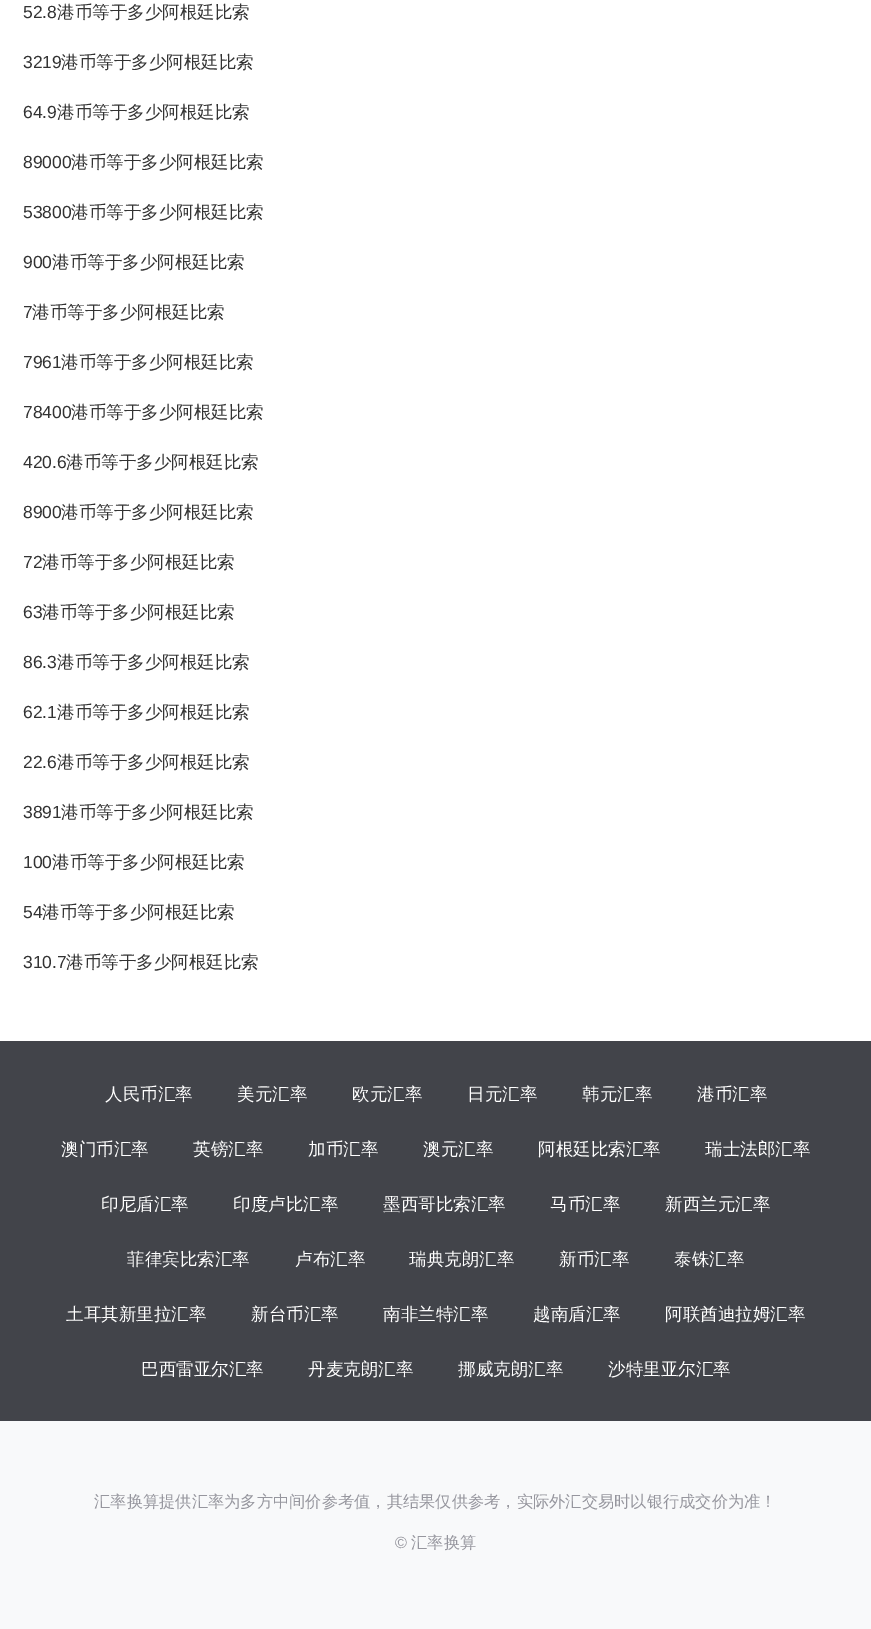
%!PS-Adobe-3.0
%%BoundingBox: 0 0 871 1629
%%LanguageLevel: 3
%%Pages: 1
%%EndComments
%%BeginProlog
/setink { 3 { 255 div 3 1 roll } repeat setrgbcolor } def
/usefont { [ exch dup neg 0 0 3 -1 roll 0 0 ] selectfont } def
/drawtext { setink usefont moveto show } def
/fillbox { setink rectfill } def
%%EndProlog
%%BeginSetup
<< /PageSize [871 1629] >> setpagedevice
%%EndSetup
%%Page: 1 1
0 1629 translate 1 -1 scale
4 setmiterlimit
0 0 871 1629 248 249 250 fillbox
0 0 871 1041 255 255 255 fillbox
(52.8) 23 18 /LiberationSans-Regular 17.5 51 51 51 drawtext
(港币等于多少阿根廷比索) 57 18 /WenQuanYiZenHei-Medium 17.5 51 51 51 drawtext
(3219) 23 68 /LiberationSans-Regular 17.5 51 51 51 drawtext
(港币等于多少阿根廷比索) 61 68 /WenQuanYiZenHei-Medium 17.5 51 51 51 drawtext
(64.9) 23 118 /LiberationSans-Regular 17.5 51 51 51 drawtext
(港币等于多少阿根廷比索) 57 118 /WenQuanYiZenHei-Medium 17.5 51 51 51 drawtext
(89000) 23 168 /LiberationSans-Regular 17.5 51 51 51 drawtext
(港币等于多少阿根廷比索) 71 168 /WenQuanYiZenHei-Medium 17.5 51 51 51 drawtext
(53800) 23 218 /LiberationSans-Regular 17.5 51 51 51 drawtext
(港币等于多少阿根廷比索) 71 218 /WenQuanYiZenHei-Medium 17.5 51 51 51 drawtext
(900) 23 268 /LiberationSans-Regular 17.5 51 51 51 drawtext
(港币等于多少阿根廷比索) 52 268 /WenQuanYiZenHei-Medium 17.5 51 51 51 drawtext
(7) 23 318 /LiberationSans-Regular 17.5 51 51 51 drawtext
(港币等于多少阿根廷比索) 32 318 /WenQuanYiZenHei-Medium 17.5 51 51 51 drawtext
(7961) 23 368 /LiberationSans-Regular 17.5 51 51 51 drawtext
(港币等于多少阿根廷比索) 61 368 /WenQuanYiZenHei-Medium 17.5 51 51 51 drawtext
(78400) 23 418 /LiberationSans-Regular 17.5 51 51 51 drawtext
(港币等于多少阿根廷比索) 71 418 /WenQuanYiZenHei-Medium 17.5 51 51 51 drawtext
(420.6) 23 468 /LiberationSans-Regular 17.5 51 51 51 drawtext
(港币等于多少阿根廷比索) 66 468 /WenQuanYiZenHei-Medium 17.5 51 51 51 drawtext
(8900) 23 518 /LiberationSans-Regular 17.5 51 51 51 drawtext
(港币等于多少阿根廷比索) 61 518 /WenQuanYiZenHei-Medium 17.5 51 51 51 drawtext
(72) 23 568 /LiberationSans-Regular 17.5 51 51 51 drawtext
(港币等于多少阿根廷比索) 42 568 /WenQuanYiZenHei-Medium 17.5 51 51 51 drawtext
(63) 23 618 /LiberationSans-Regular 17.5 51 51 51 drawtext
(港币等于多少阿根廷比索) 42 618 /WenQuanYiZenHei-Medium 17.5 51 51 51 drawtext
(86.3) 23 668 /LiberationSans-Regular 17.5 51 51 51 drawtext
(港币等于多少阿根廷比索) 57 668 /WenQuanYiZenHei-Medium 17.5 51 51 51 drawtext
(62.1) 23 718 /LiberationSans-Regular 17.5 51 51 51 drawtext
(港币等于多少阿根廷比索) 57 718 /WenQuanYiZenHei-Medium 17.5 51 51 51 drawtext
(22.6) 23 768 /LiberationSans-Regular 17.5 51 51 51 drawtext
(港币等于多少阿根廷比索) 57 768 /WenQuanYiZenHei-Medium 17.5 51 51 51 drawtext
(3891) 23 818 /LiberationSans-Regular 17.5 51 51 51 drawtext
(港币等于多少阿根廷比索) 61 818 /WenQuanYiZenHei-Medium 17.5 51 51 51 drawtext
(100) 23 868 /LiberationSans-Regular 17.5 51 51 51 drawtext
(港币等于多少阿根廷比索) 52 868 /WenQuanYiZenHei-Medium 17.5 51 51 51 drawtext
(54) 23 918 /LiberationSans-Regular 17.5 51 51 51 drawtext
(港币等于多少阿根廷比索) 42 918 /WenQuanYiZenHei-Medium 17.5 51 51 51 drawtext
(310.7) 23 968 /LiberationSans-Regular 17.5 51 51 51 drawtext
(港币等于多少阿根廷比索) 66 968 /WenQuanYiZenHei-Medium 17.5 51 51 51 drawtext
0 1041 871 380 66 68 74 fillbox
(人民币汇率) 105 1100 /WenQuanYiZenHei-Medium 17.5 255 255 255 drawtext
(美元汇率) 237 1100 /WenQuanYiZenHei-Medium 17.5 255 255 255 drawtext
(欧元汇率) 352 1100 /WenQuanYiZenHei-Medium 17.5 255 255 255 drawtext
(日元汇率) 467 1100 /WenQuanYiZenHei-Medium 17.5 255 255 255 drawtext
(韩元汇率) 582 1100 /WenQuanYiZenHei-Medium 17.5 255 255 255 drawtext
(港币汇率) 697 1100 /WenQuanYiZenHei-Medium 17.5 255 255 255 drawtext
(澳门币汇率) 61 1155 /WenQuanYiZenHei-Medium 17.5 255 255 255 drawtext
(英镑汇率) 193 1155 /WenQuanYiZenHei-Medium 17.5 255 255 255 drawtext
(加币汇率) 308 1155 /WenQuanYiZenHei-Medium 17.5 255 255 255 drawtext
(澳元汇率) 423 1155 /WenQuanYiZenHei-Medium 17.5 255 255 255 drawtext
(阿根廷比索汇率) 538 1155 /WenQuanYiZenHei-Medium 17.5 255 255 255 drawtext
(瑞士法郎汇率) 705 1155 /WenQuanYiZenHei-Medium 17.5 255 255 255 drawtext
(印尼盾汇率) 101 1210 /WenQuanYiZenHei-Medium 17.5 255 255 255 drawtext
(印度卢比汇率) 233 1210 /WenQuanYiZenHei-Medium 17.5 255 255 255 drawtext
(墨西哥比索汇率) 383 1210 /WenQuanYiZenHei-Medium 17.5 255 255 255 drawtext
(马币汇率) 550 1210 /WenQuanYiZenHei-Medium 17.5 255 255 255 drawtext
(新西兰元汇率) 665 1210 /WenQuanYiZenHei-Medium 17.5 255 255 255 drawtext
(菲律宾比索汇率) 127 1265 /WenQuanYiZenHei-Medium 17.5 255 255 255 drawtext
(卢布汇率) 295 1265 /WenQuanYiZenHei-Medium 17.5 255 255 255 drawtext
(瑞典克朗汇率) 409 1265 /WenQuanYiZenHei-Medium 17.5 255 255 255 drawtext
(新币汇率) 559 1265 /WenQuanYiZenHei-Medium 17.5 255 255 255 drawtext
(泰铢汇率) 674 1265 /WenQuanYiZenHei-Medium 17.5 255 255 255 drawtext
(土耳其新里拉汇率) 66 1320 /WenQuanYiZenHei-Medium 17.5 255 255 255 drawtext
(新台币汇率) 251 1320 /WenQuanYiZenHei-Medium 17.5 255 255 255 drawtext
(南非兰特汇率) 383 1320 /WenQuanYiZenHei-Medium 17.5 255 255 255 drawtext
(越南盾汇率) 533 1320 /WenQuanYiZenHei-Medium 17.5 255 255 255 drawtext
(阿联酋迪拉姆汇率) 665 1320 /WenQuanYiZenHei-Medium 17.5 255 255 255 drawtext
(巴西雷亚尔汇率) 141 1375 /WenQuanYiZenHei-Medium 17.5 255 255 255 drawtext
(丹麦克朗汇率) 308 1375 /WenQuanYiZenHei-Medium 17.5 255 255 255 drawtext
(挪威克朗汇率) 458 1375 /WenQuanYiZenHei-Medium 17.5 255 255 255 drawtext
(沙特里亚尔汇率) 608 1375 /WenQuanYiZenHei-Medium 17.5 255 255 255 drawtext
(汇率换算提供汇率为多方中间价参考值，其结果仅供参考，实际外汇交易时以银行成交价为准！) 94 1507 /WenQuanYiZenHei-Medium 16.25 150 150 158 drawtext
(©) 395 1548 /LiberationSans-Regular 16.25 150 150 158 drawtext
(汇率换算) 411 1548 /WenQuanYiZenHei-Medium 16.25 150 150 158 drawtext
showpage
%%EOF
